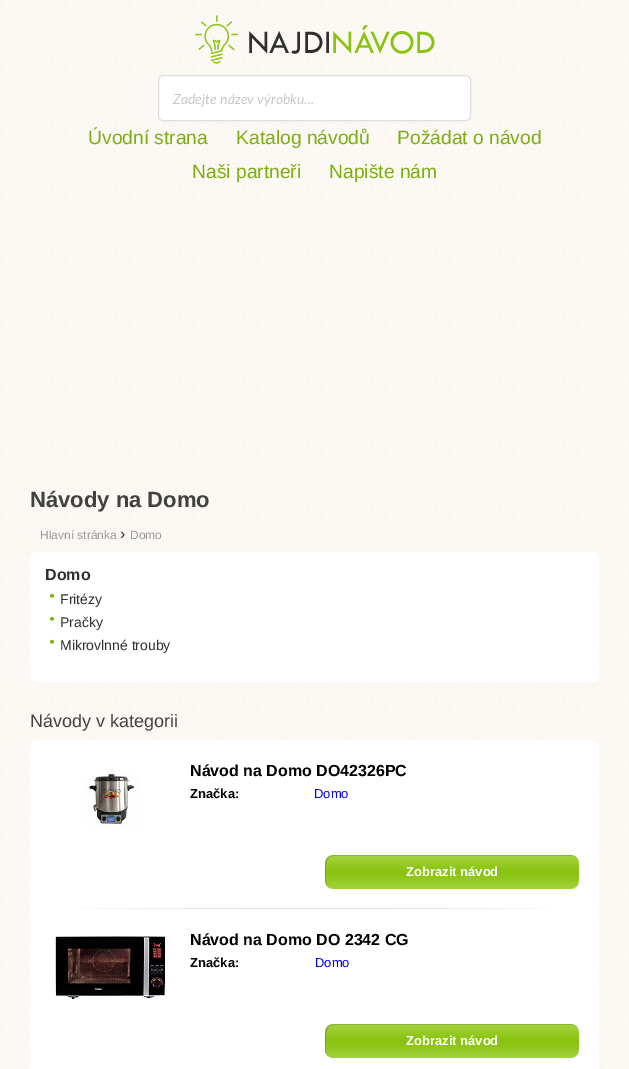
%!PS-Adobe-3.0
%%BoundingBox: 0 0 629 1069
%%LanguageLevel: 3
%%Pages: 1
%%EndComments
%%BeginProlog
/setink { 3 { 255 div 3 1 roll } repeat setrgbcolor } def
/usefont { [ exch dup neg 0 0 3 -1 roll 0 0 ] selectfont } def
/drawtext { setink usefont moveto show } def
/fillbox { setink rectfill } def
/setalpha { dup .setfillconstantalpha .setstrokeconstantalpha } def
/rrect { 5 dict begin { /r /h /w /y /x } { exch def } forall
  x r add y moveto x w add y 2 copy h add r arct x w add y h add x 1 index r arct
  x y h add x y r arct x y 2 copy exch w add exch r arct closepath end } def
/drawimage { 5 dict begin { /h /w /y /x /name } { exch def } forall
  gsave x y translate w h scale
  w h 8 [w 0 0 h 0 0] name (r) file false 3 colorimage grestore end } def
%%EndProlog
%%BeginSetup
<< /PageSize [629 1069] /PageUsesTransparency true >> setpagedevice
%%EndSetup
%%Page: 1 1
0 .pushpdf14devicefilter
0 1069 translate 1 -1 scale
4 setmiterlimit
0 0 629 1069 255 255 255 fillbox
(assets/img1.rgb) 0 0 629 1069 drawimage
(assets/img2.rgb) 195 15 240 49 drawimage
158 75 313 46 5 rrect fill
0.15 setalpha
34 36 38 setink
158.5 75.5 312 45 4.5 rrect stroke
1 setalpha
(Zadejte název výrobku...) 173 104 /Lato-Italic 14 199 199 199 drawtext
(Úvodní strana) 88 144 /LiberationSans-Regular 19.25 124 174 17 drawtext
(Katalog návodů) 236 144 /LiberationSans-Regular 19.25 124 174 17 drawtext
(Požádat o návod) 397 144 /LiberationSans-Regular 19.25 124 174 17 drawtext
(Naši partneři) 192 178 /LiberationSans-Regular 19.25 124 174 17 drawtext
(Napište nám) 329 178 /LiberationSans-Regular 19.25 124 174 17 drawtext
(Návody na Domo) 30 507 /LiberationSans-Bold 22 65 65 65 drawtext
(Hlavní stránka) 40 539 /LiberationSans-Regular 12 153 153 153 drawtext
(›) 120 539 /LiberationSans-Regular 16 47 47 47 drawtext
(Domo) 130 539 /LiberationSans-Regular 12 153 153 153 drawtext
255 255 255 setink
30 552 569 130 8 rrect fill
(Domo) 45 580 /LiberationSans-Bold 16 47 47 47 drawtext
(assets/img3.rgb) 50 593 5 5 drawimage
(Fritézy) 60 604 /LiberationSans-Regular 14 47 47 47 drawtext
(assets/img3.rgb) 50 616 5 5 drawimage
(Pračky) 60 627 /LiberationSans-Regular 14 47 47 47 drawtext
(assets/img3.rgb) 50 639 5 5 drawimage
(Mikrovlnné trouby) 60 650 /LiberationSans-Regular 14 47 47 47 drawtext
(Návody v kategorii) 30 727 /LiberationSans-Regular 18 65 65 65 drawtext
255 255 255 setink
30 740 569 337 8 rrect fill
(assets/img4.rgb) 81 908 469 1 drawimage
(assets/img5.rgb) 85 774 55 55 drawimage
(Návod na Domo DO42326PC) 190 776 /LiberationSans-Bold 16 0 0 0 drawtext
(Značka:) 190 798 /LiberationSans-Bold 13 0 0 0 drawtext
(Domo) 314 798 /LiberationSans-Regular 13 0 0 238 drawtext
(assets/img6.rgb) 325 855 254 34 drawimage
0.14 setalpha
0 0 0 setink
334 856 moveto 572 856 lineto 574 856 576 857 578 859 curveto 576 857 574 855 571 855 curveto 333 855 lineto 329 855 325 859 325 863 curveto 325 881 lineto 325 884 327 886 329 888 curveto 325 884 326 878 326 873 curveto 326 867 325 856 334 856 curveto closepath fill
1 setalpha
(Zobrazit návod) 406 876 /LiberationSans-Bold 13 255 255 255 drawtext
(assets/img7.rgb) 55 936 111 63 drawimage
(Návod na Domo DO 2342 CG) 190 945 /LiberationSans-Bold 16 0 0 0 drawtext
(Značka:) 190 967 /LiberationSans-Bold 13 0 0 0 drawtext
(Domo) 315 967 /LiberationSans-Regular 13 0 0 238 drawtext
(assets/img6.rgb) 325 1024 254 34 drawimage
0.14 setalpha
0 0 0 setink
334 1025 moveto 572 1025 lineto 574 1025 576 1026 578 1028 curveto 576 1026 574 1024 571 1024 curveto 333 1024 lineto 329 1024 325 1028 325 1032 curveto 325 1050 lineto 325 1053 327 1055 329 1057 curveto 325 1053 326 1047 326 1042 curveto 326 1036 325 1025 334 1025 curveto closepath fill
1 setalpha
(Zobrazit návod) 406 1045 /LiberationSans-Bold 13 255 255 255 drawtext
.poppdf14devicefilter showpage
%%EOF
